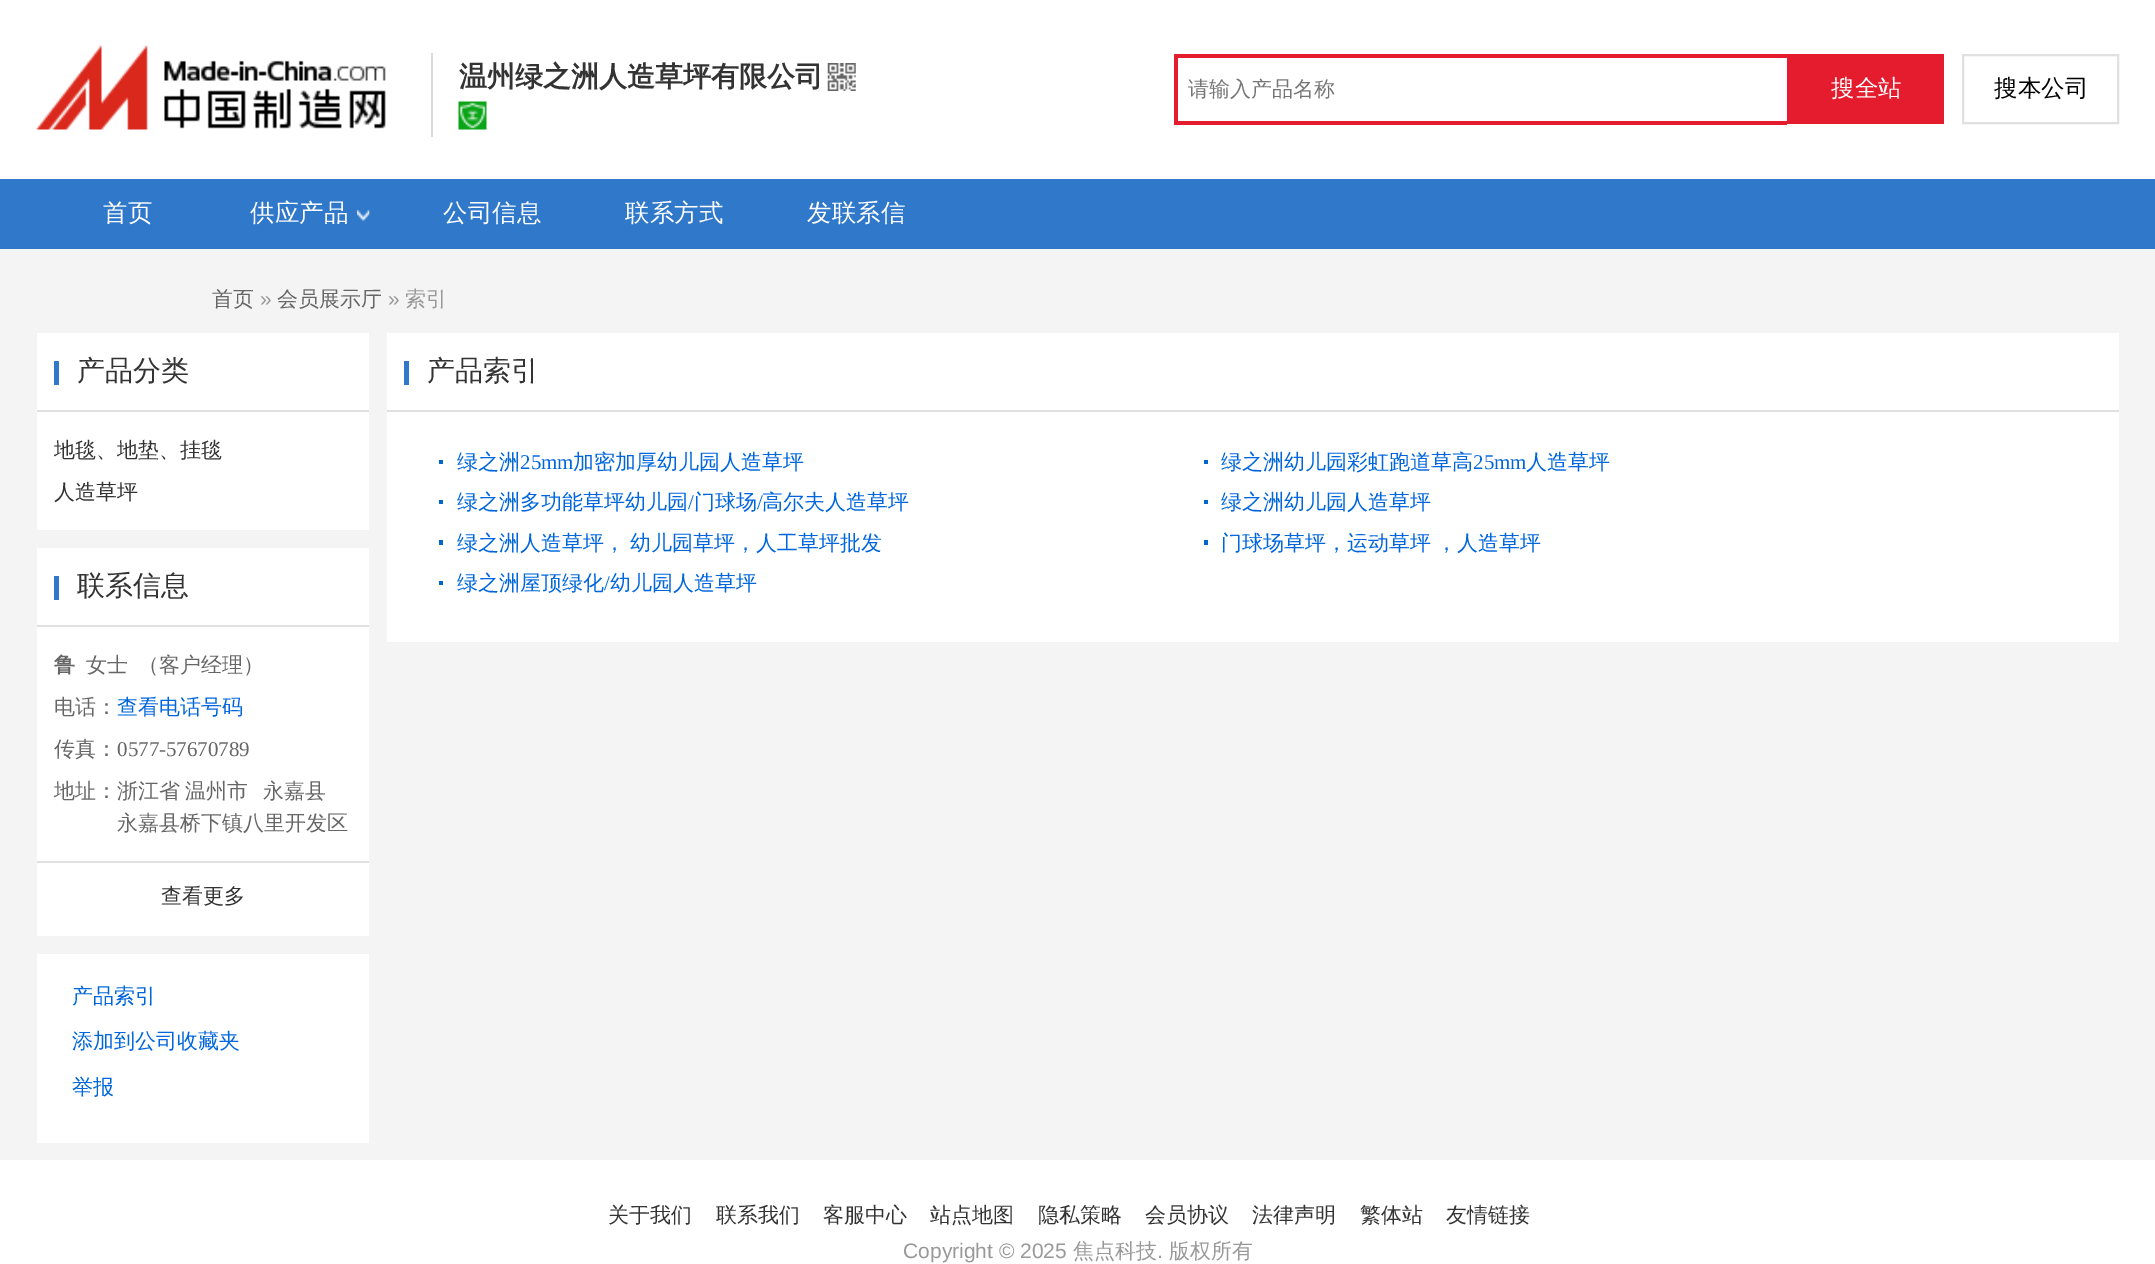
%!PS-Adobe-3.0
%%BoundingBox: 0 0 2155 1264
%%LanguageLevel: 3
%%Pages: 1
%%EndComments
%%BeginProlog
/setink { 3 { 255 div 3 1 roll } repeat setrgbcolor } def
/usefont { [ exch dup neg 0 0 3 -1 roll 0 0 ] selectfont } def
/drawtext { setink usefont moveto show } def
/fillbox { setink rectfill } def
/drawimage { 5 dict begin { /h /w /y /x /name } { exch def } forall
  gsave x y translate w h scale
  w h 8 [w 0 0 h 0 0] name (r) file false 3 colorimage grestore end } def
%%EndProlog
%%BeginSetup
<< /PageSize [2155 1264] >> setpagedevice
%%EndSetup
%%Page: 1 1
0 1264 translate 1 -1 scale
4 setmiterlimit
0 0 2155 1264 244 244 244 fillbox
0 0 2155 179 255 255 255 fillbox
(assets/img1.rgb) 36 45 350 85 drawimage
431 53 2 84 217 217 217 fillbox
(温州绿之洲人造草坪有限公司) 459 86 /WenQuanYiZenHei-Bold 28 51 51 51 drawtext
(assets/img2.rgb) 827 63 29 28 drawimage
(assets/img3.rgb) 458 101 29 29 drawimage
1174 54 613 4 228 28 46 fillbox
1174 121 613 4 228 28 46 fillbox
1174 54 4 70 228 28 46 fillbox
(请输入产品名称) 1188 96 /WenQuanYiZenHei-Medium 21 117 117 117 drawtext
1787 54 157 70 228 28 46 fillbox
(搜全站) 1831 96 /WenQuanYiZenHei-Medium 23.5 255 255 255 drawtext
224 224 224 setink
2 setlinewidth
1963 55 155 68 rectstroke
(搜本公司) 1994 96 /WenQuanYiZenHei-Medium 23.5 0 0 0 drawtext
0 179 2155 70 47 120 202 fillbox
(首页) 103 221 /WenQuanYiZenHei-Medium 24.5 255 255 255 drawtext
(供应产品) 250 221 /WenQuanYiZenHei-Medium 24.5 255 255 255 drawtext
(assets/img4.rgb) 357 210 13 11 drawimage
(公司信息) 443 221 /WenQuanYiZenHei-Medium 24.5 255 255 255 drawtext
(联系方式) 625 221 /WenQuanYiZenHei-Medium 24.5 255 255 255 drawtext
(发联系信) 807 221 /WenQuanYiZenHei-Medium 24.5 255 255 255 drawtext
(首页) 212 306 /WenQuanYiZenHei-Medium 21 102 102 102 drawtext
(») 260 306 /LiberationSans-Regular 21 153 153 153 drawtext
(会员展示厅) 277 306 /WenQuanYiZenHei-Medium 21 102 102 102 drawtext
(») 388 306 /LiberationSans-Regular 21 153 153 153 drawtext
(索引) 405 306 /WenQuanYiZenHei-Medium 21 153 153 153 drawtext
37 333 332 197 255 255 255 fillbox
37 410 332 2 224 224 224 fillbox
54 361 5 24 47 120 202 fillbox
(产品分类) 77 380 /WenQuanYiZenHei-Medium 28 51 51 51 drawtext
(地毯、地垫、挂毯) 54 457 /WenQuanYiZenHei-Medium 21 51 51 51 drawtext
(人造草坪) 54 499 /WenQuanYiZenHei-Medium 21 51 51 51 drawtext
37 548 332 388 255 255 255 fillbox
37 625 332 2 224 224 224 fillbox
54 576 5 24 47 120 202 fillbox
(联系信息) 77 595 /WenQuanYiZenHei-Medium 28 51 51 51 drawtext
(鲁) 54 672 /WenQuanYiZenHei-Bold 21 102 102 102 drawtext
(女士) 86 672 /WenQuanYiZenHei-Medium 21 102 102 102 drawtext
(（客户经理）) 138 672 /WenQuanYiZenHei-Medium 21 102 102 102 drawtext
(电话：) 54 714 /WenQuanYiZenHei-Medium 21 102 102 102 drawtext
(查看电话号码) 117 714 /WenQuanYiZenHei-Medium 21 0 102 221 drawtext
(传真：) 54 756 /WenQuanYiZenHei-Medium 21 102 102 102 drawtext
(0577-57670789) 117 756 /LiberationSerif-Regular 21 102 102 102 drawtext
(地址：) 54 798 /WenQuanYiZenHei-Medium 21 102 102 102 drawtext
117 798 moveto -1 0 32 (浙江省 温州市) widthshow
(永嘉县) 263 798 /WenQuanYiZenHei-Medium 21 102 102 102 drawtext
(永嘉县桥下镇八里开发区) 117 830 /WenQuanYiZenHei-Medium 21 102 102 102 drawtext
37 861 332 2 224 224 224 fillbox
(查看更多) 161 903 /WenQuanYiZenHei-Medium 21 51 51 51 drawtext
37 954 332 189 255 255 255 fillbox
(产品索引) 72 1003 /WenQuanYiZenHei-Medium 21 0 102 221 drawtext
(添加到公司收藏夹) 72 1048 /WenQuanYiZenHei-Medium 21 0 102 221 drawtext
(举报) 72 1094 /WenQuanYiZenHei-Medium 21 0 102 221 drawtext
387 333 1732 309 255 255 255 fillbox
387 410 1732 2 224 224 224 fillbox
404 361 5 24 47 120 202 fillbox
(产品索引) 427 380 /WenQuanYiZenHei-Medium 28 51 51 51 drawtext
439 460 4 4 0 102 204 fillbox
(绿之洲) 457 469 /WenQuanYiZenHei-Medium 21 0 102 221 drawtext
(25mm) 520 469 /LiberationSerif-Regular 21 0 102 221 drawtext
(加密加厚幼儿园人造草坪) 573 469 /WenQuanYiZenHei-Medium 21 0 102 221 drawtext
439 500 4 4 0 102 204 fillbox
(绿之洲多功能草坪幼儿园) 457 509 /WenQuanYiZenHei-Medium 21 0 102 221 drawtext
(/) 688 509 /LiberationSerif-Regular 21 0 102 221 drawtext
(门球场) 694 509 /WenQuanYiZenHei-Medium 21 0 102 221 drawtext
(/) 757 509 /LiberationSerif-Regular 21 0 102 221 drawtext
(高尔夫人造草坪) 762 509 /WenQuanYiZenHei-Medium 21 0 102 221 drawtext
439 540 4 5 0 102 204 fillbox
(绿之洲人造草坪，) 457 550 /WenQuanYiZenHei-Medium 21 0 102 221 drawtext
(幼儿园草坪，人工草坪批发) 630 550 /WenQuanYiZenHei-Medium 21 0 102 221 drawtext
439 581 4 4 0 101 204 fillbox
(绿之洲屋顶绿化) 457 590 /WenQuanYiZenHei-Medium 21 0 102 221 drawtext
(/) 604 590 /LiberationSerif-Regular 21 0 102 221 drawtext
(幼儿园人造草坪) 610 590 /WenQuanYiZenHei-Medium 21 0 102 221 drawtext
1204 460 4 4 0 101 204 fillbox
(绿之洲幼儿园彩虹跑道草高) 1221 469 /WenQuanYiZenHei-Medium 21 0 102 221 drawtext
(25mm) 1473 469 /LiberationSerif-Regular 21 0 102 221 drawtext
(人造草坪) 1526 469 /WenQuanYiZenHei-Medium 21 0 102 221 drawtext
1204 500 4 4 0 102 204 fillbox
(绿之洲幼儿园人造草坪) 1221 509 /WenQuanYiZenHei-Medium 21 0 102 221 drawtext
1204 540 4 5 0 102 204 fillbox
0 102 221 setink
1221 550 moveto -1 0 32 (门球场草坪，运动草坪 ，人造草坪) widthshow
0 1160 2155 104 255 255 255 fillbox
(关于我们) 608 1222 /WenQuanYiZenHei-Medium 21 51 51 51 drawtext
(联系我们) 716 1222 /WenQuanYiZenHei-Medium 21 51 51 51 drawtext
(客服中心) 823 1222 /WenQuanYiZenHei-Medium 21 51 51 51 drawtext
(站点地图) 930 1222 /WenQuanYiZenHei-Medium 21 51 51 51 drawtext
(隐私策略) 1038 1222 /WenQuanYiZenHei-Medium 21 51 51 51 drawtext
(会员协议) 1145 1222 /WenQuanYiZenHei-Medium 21 51 51 51 drawtext
(法律声明) 1252 1222 /WenQuanYiZenHei-Medium 21 51 51 51 drawtext
(繁体站) 1360 1222 /WenQuanYiZenHei-Medium 21 51 51 51 drawtext
(友情链接) 1446 1222 /WenQuanYiZenHei-Medium 21 51 51 51 drawtext
(Copyright © 2025) 903 1258 /LiberationSans-Regular 21 153 153 153 drawtext
(焦点科技) 1073 1258 /WenQuanYiZenHei-Medium 21 153 153 153 drawtext
(.) 1157 1258 /LiberationSans-Regular 21 153 153 153 drawtext
(版权所有) 1169 1258 /WenQuanYiZenHei-Medium 21 153 153 153 drawtext
showpage
%%EOF
